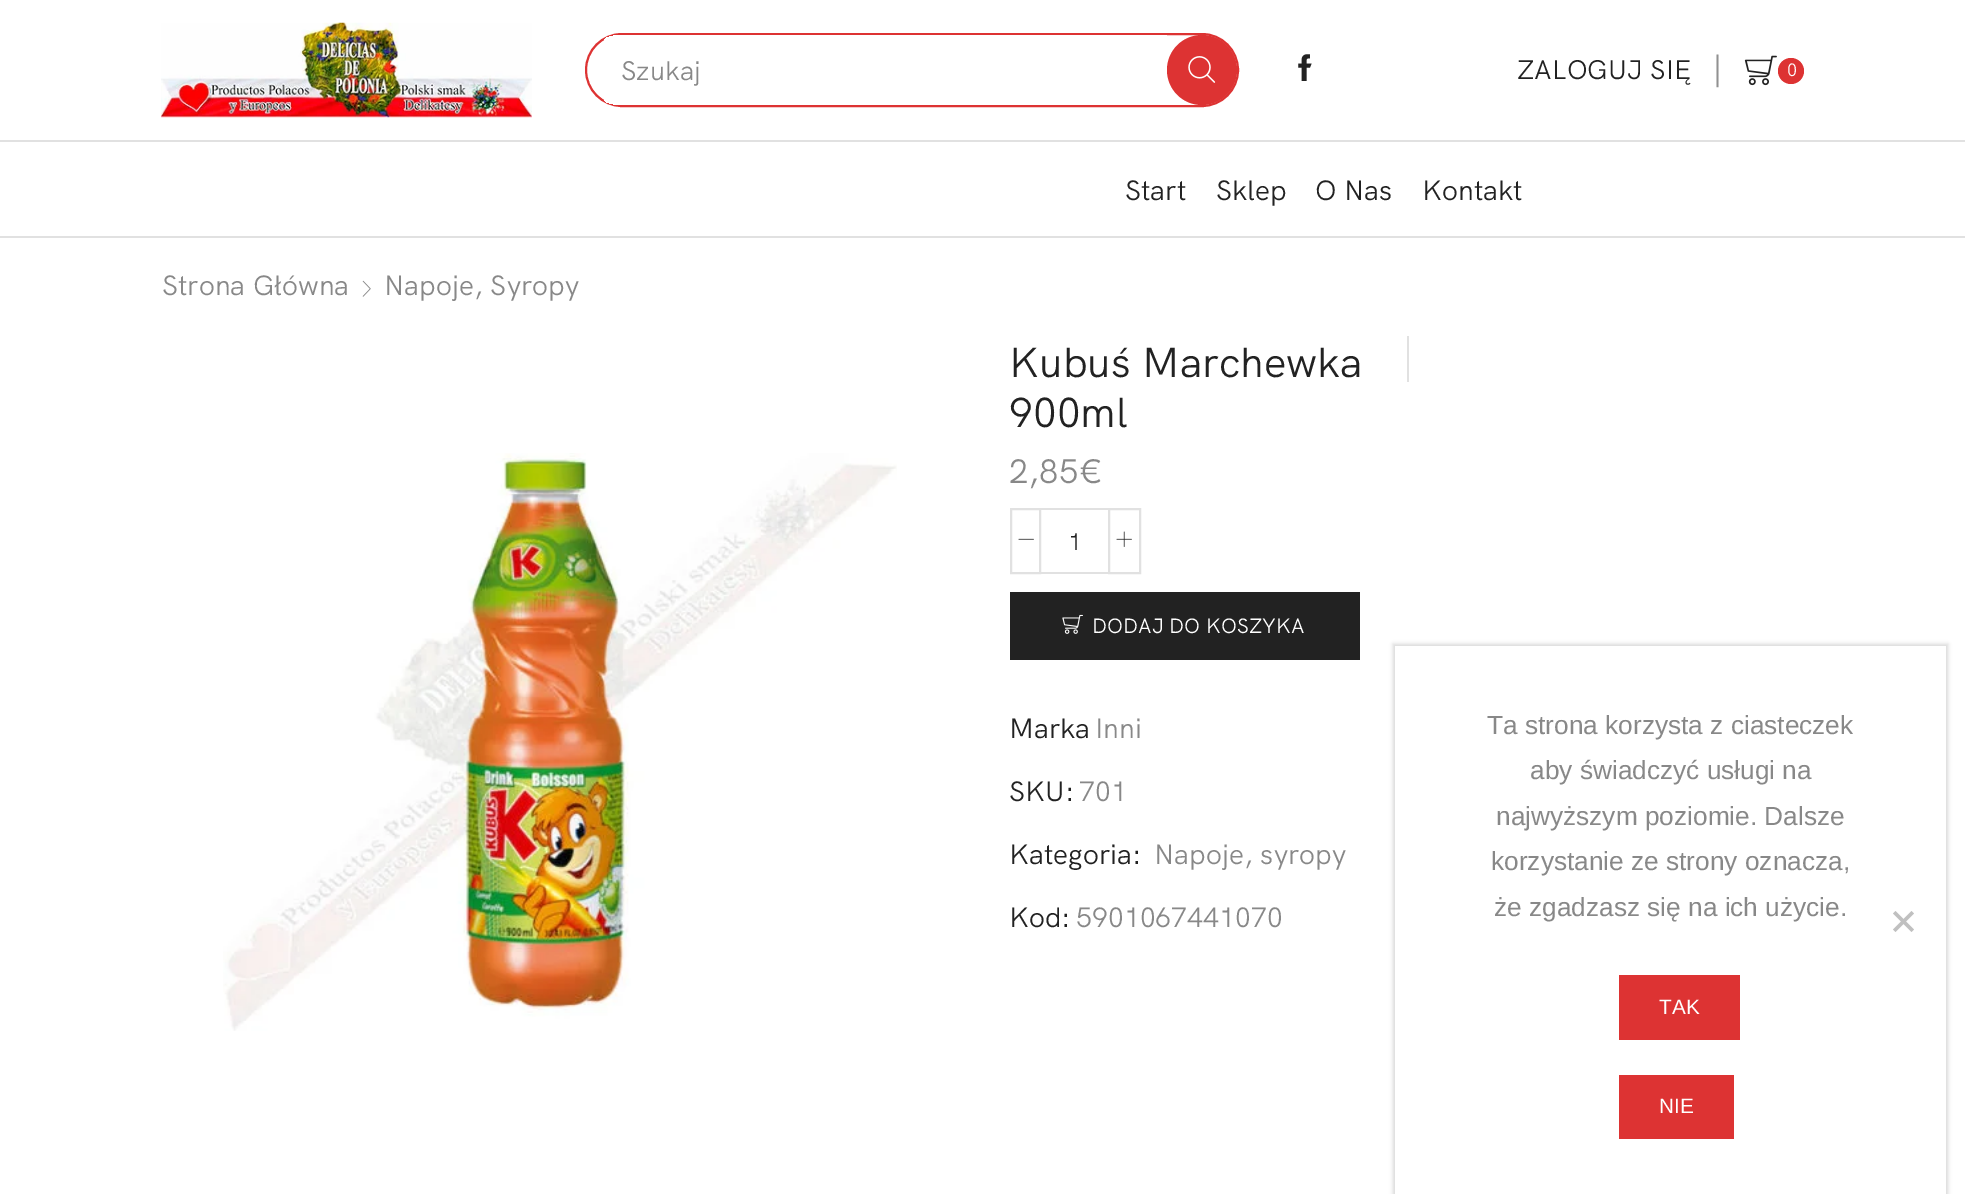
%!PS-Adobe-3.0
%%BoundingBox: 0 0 1965 1194
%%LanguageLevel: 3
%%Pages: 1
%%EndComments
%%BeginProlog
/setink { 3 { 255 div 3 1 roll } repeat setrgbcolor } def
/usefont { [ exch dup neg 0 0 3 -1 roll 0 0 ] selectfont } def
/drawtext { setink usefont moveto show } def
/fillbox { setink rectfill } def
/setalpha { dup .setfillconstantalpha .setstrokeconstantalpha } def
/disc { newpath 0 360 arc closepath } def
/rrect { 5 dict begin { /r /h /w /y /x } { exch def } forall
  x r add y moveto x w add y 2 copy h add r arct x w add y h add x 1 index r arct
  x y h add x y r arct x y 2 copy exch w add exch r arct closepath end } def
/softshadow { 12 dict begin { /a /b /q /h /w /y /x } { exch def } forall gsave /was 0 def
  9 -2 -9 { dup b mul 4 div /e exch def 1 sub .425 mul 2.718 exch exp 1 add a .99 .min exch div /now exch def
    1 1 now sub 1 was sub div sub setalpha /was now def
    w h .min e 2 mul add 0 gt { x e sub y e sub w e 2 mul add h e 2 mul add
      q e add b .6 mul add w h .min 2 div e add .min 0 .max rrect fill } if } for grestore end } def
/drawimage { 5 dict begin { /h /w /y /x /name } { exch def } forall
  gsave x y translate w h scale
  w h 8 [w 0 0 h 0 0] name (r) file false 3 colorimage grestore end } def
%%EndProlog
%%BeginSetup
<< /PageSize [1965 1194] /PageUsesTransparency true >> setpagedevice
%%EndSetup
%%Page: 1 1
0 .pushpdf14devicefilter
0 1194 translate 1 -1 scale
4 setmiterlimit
0 0 1965 1194 255 255 255 fillbox
0 140 1965 2 225 225 225 fillbox
(assets/img1.rgb) 161 22 371 96 drawimage
221 51 51 setink
2 setlinewidth
586 34 652 72 36 rrect stroke
gsave
586 35 651 70 35 rrect clip newpath
604 35 563 70 255 255 255 fillbox
grestore
(Szukaj) 621 80 /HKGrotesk-Regular 27 136 136 136 drawtext
221 51 51 setink
1202 70 35 disc fill
(assets/img2.rgb) 1188 56 28 27 drawimage
(assets/img3.rgb) 1298 54 14 27 drawimage
(ZALOGUJ SIĘ) 1517 79 /HKGrotesk-Regular 27 34 34 34 drawtext
(│) 1708 79 /LiberationSerif-Regular 27 145 145 145 drawtext
(assets/img4.rgb) 1744 55 33 31 drawimage
221 51 51 setink
1791 71 13 disc fill
(0) 1787 76 /HKGrotesk-Regular 18 255 255 255 drawtext
0 236 1965 2 225 225 225 fillbox
(Start) 1125 200 /HKGrotesk-Regular 28 34 34 34 drawtext
(Sklep) 1216 200 /HKGrotesk-Regular 28 34 34 34 drawtext
(O Nas) 1315 200 /HKGrotesk-Regular 28 34 34 34 drawtext
(Kontakt) 1422 200 /HKGrotesk-Regular 28 34 34 34 drawtext
(Strona Główna) 162 295 /HKGrotesk-Regular 28 136 136 136 drawtext
(assets/img5.rgb) 362 280 9 17 drawimage
(Napoje, Syropy) 384 295 /HKGrotesk-Regular 28 136 136 136 drawtext
(assets/img6.rgb) 223 453 674 578 drawimage
(Kubuś Marchewka) 1009 377 /HKGrotesk-Regular 42 34 34 34 drawtext
(900ml) 1009 427 /HKGrotesk-Regular 42 34 34 34 drawtext
(2,85€) 1009 483 /HKGrotesk-Regular 34 136 136 136 drawtext
225 225 225 setink
1011 509 29 64 rectstroke
(assets/img7.rgb) 1018 538 16 2 drawimage
1041 508 67 2 225 225 225 fillbox
1041 572 67 2 225 225 225 fillbox
(1) 1068 550 /HKGrotesk-Regular 24 34 34 34 drawtext
225 225 225 setink
1109 509 31 64 rectstroke
(assets/img8.rgb) 1116 531 16 16 drawimage
1010 592 350 68 34 34 34 fillbox
(assets/img9.rgb) 1062 614 21 20 drawimage
(DODAJ DO KOSZYKA) 1092 633 /HKGrotesk-Regular 20.75 255 255 255 drawtext
(Marka) 1009 738 /HKGrotesk-Regular 28 34 34 34 drawtext
(Inni) 1095 738 /HKGrotesk-Regular 28 136 136 136 drawtext
(SKU:) 1009 801 /HKGrotesk-Regular 28 34 34 34 drawtext
(701) 1079 801 /HKGrotesk-Regular 28 136 136 136 drawtext
(Kategoria:) 1009 864 /HKGrotesk-Regular 28 34 34 34 drawtext
(Napoje, syropy) 1154 864 /HKGrotesk-Regular 28 136 136 136 drawtext
(Kod:) 1009 927 /HKGrotesk-Regular 28 34 34 34 drawtext
(5901067441070) 1076 927 /HKGrotesk-Regular 28 136 136 136 drawtext
1407 336 2 46 225 225 225 fillbox
gsave
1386 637 moveto 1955 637 lineto 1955 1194 lineto 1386 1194 lineto closepath 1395 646 moveto 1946 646 lineto 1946 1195 lineto 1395 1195 lineto closepath eoclip newpath
0 0 0 setink
1393 644 555 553 0 2 0.15 softshadow
grestore
(Ta strona korzysta z ciasteczek) 1487 734 /LiberationSans-Regular 26.25 136 136 136 drawtext
(aby świadczyć usługi na) 1530 779 /LiberationSans-Regular 26.25 136 136 136 drawtext
(najwyższym poziomie. Dalsze) 1496 825 /LiberationSans-Regular 26.25 136 136 136 drawtext
(korzystanie ze strony oznacza,) 1491 870 /LiberationSans-Regular 26.25 136 136 136 drawtext
(że zgadzasz się na ich użycie.) 1494 916 /LiberationSans-Regular 26.25 136 136 136 drawtext
192 192 192 setink
1911.5 911 moveto 1914 913.5 lineto 1895.5 932 lineto 1893 929.5 lineto closepath fill
1893 913.5 moveto 1895.5 911 lineto 1914 929.5 lineto 1911.5 932 lineto closepath fill
1619 975 121 65 221 51 51 fillbox
(TAK) 1659 1014 /LiberationSans-Regular 20.75 255 255 255 drawtext
1619 1075 115 64 221 51 51 fillbox
(NIE) 1659 1113 /LiberationSans-Regular 20.75 255 255 255 drawtext
.poppdf14devicefilter showpage
%%EOF
